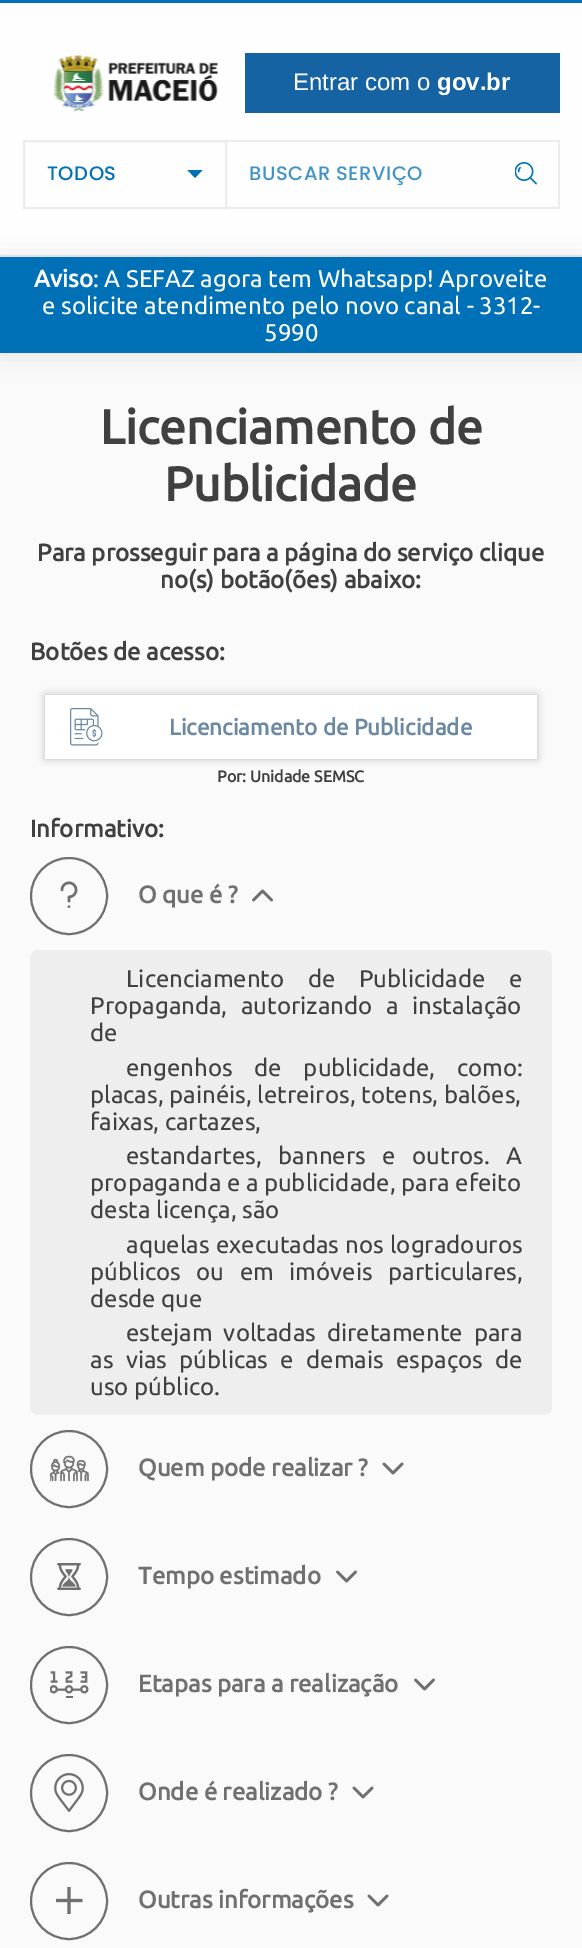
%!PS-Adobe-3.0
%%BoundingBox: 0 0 582 1948
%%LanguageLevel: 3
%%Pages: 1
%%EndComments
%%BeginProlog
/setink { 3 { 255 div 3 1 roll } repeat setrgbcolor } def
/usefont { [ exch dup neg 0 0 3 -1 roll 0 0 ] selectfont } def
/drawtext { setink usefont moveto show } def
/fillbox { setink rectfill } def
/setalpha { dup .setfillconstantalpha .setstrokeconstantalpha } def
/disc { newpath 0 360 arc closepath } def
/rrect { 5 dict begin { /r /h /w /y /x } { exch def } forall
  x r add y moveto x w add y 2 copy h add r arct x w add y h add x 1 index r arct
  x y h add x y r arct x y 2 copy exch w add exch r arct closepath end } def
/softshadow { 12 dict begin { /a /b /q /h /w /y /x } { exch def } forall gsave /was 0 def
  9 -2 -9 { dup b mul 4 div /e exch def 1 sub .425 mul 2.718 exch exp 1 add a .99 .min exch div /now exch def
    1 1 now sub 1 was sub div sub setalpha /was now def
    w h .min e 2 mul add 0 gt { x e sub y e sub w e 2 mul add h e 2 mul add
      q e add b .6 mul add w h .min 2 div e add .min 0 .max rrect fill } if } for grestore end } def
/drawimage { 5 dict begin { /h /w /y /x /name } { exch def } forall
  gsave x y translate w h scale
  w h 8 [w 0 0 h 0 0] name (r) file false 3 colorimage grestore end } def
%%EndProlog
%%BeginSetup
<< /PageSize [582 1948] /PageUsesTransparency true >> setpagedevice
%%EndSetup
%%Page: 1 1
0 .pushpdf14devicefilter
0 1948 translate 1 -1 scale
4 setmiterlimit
0 0 582 1948 250 250 250 fillbox
0.85 setalpha
0 3 582 252 255 255 255 fillbox
1 setalpha
0 255 582 2 234 236 237 fillbox
0 0 582 3 0 113 182 fillbox
(assets/img1.rgb) 53 55 165 56 drawimage
245 53 315 60 22 99 164 fillbox
(Entrar com o) 293 90 /LiberationSans-Regular 24 255 255 255 drawtext
(gov.br) 437 90 /LiberationSans-Bold 24 255 255 255 drawtext
234 236 237 setink
2 setlinewidth
24 141 202 67 rectstroke
/Poppins-Medium 19.5 usefont
0 113 182 setink
47 180 moveto 0.5 0 (TODOS) ashow
187.5 170 moveto 195 178 lineto 202.5 170 lineto closepath fill
227 140 333 2 234 236 237 fillbox
558 140 2 69 234 236 237 fillbox
227 207 333 2 234 236 237 fillbox
64 148 200 setink
249 180 moveto 0.5 0 (BUSCAR SERVIÇO) ashow
(assets/img2.rgb) 515 162 22 23 drawimage
0 0 0 setink
0 257 582 96 0 12 0.1 softshadow
0 257 582 96 0 113 182 fillbox
(Aviso) 34 287 /Ubuntu-Bold 24 255 255 255 drawtext
(: A SEFAZ agora tem Whatsapp! Aproveite) 93 287 /Ubuntu-Regular 24 255 255 255 drawtext
(e solicite atendimento pelo novo canal - 3312-) 42 314 /Ubuntu-Regular 24 255 255 255 drawtext
(5990) 264 341 /Ubuntu-Regular 24 255 255 255 drawtext
(Licenciamento de) 100 444 /Ubuntu-Bold 48 64 64 64 drawtext
(Publicidade) 164 501 /Ubuntu-Bold 48 64 64 64 drawtext
(Para prosseguir para a página do serviço clique) 37 561 /Ubuntu-Bold 24 64 64 64 drawtext
(no\(s\) botão\(ões\) abaixo:) 160 588 /Ubuntu-Bold 24 64 64 64 drawtext
(Botões de acesso:) 30 660 /Ubuntu-Bold 24 64 64 64 drawtext
0 0 0 setink
45 695 492 64 0 4 0.25 softshadow
45 695 492 64 255 255 255 fillbox
(assets/img3.rgb) 70 708 33 38 drawimage
(Licenciamento de Publicidade) 169 735 /Ubuntu-Bold 22.5 107 137 162 drawtext
(Por: Unidade SEMSC) 217 782 /Ubuntu-Bold 16 64 64 64 drawtext
(Informativo:) 30 837 /Ubuntu-Bold 24 64 64 64 drawtext
112 112 112 setink
69 896 38 disc stroke
(assets/img4.rgb) 60 881 18 27 drawimage
(O que é ?) 138 903 /Ubuntu-Bold 24 112 112 112 drawtext
(assets/img5.rgb) 252 889 21 13 drawimage
238 238 238 setink
30 950 522 465 8 rrect fill
/Ubuntu-Regular 24 usefont
64 64 64 setink
126 987 moveto 18 0 32 (Licenciamento de Publicidade e) widthshow
90 1014 moveto 8 0 32 (Propaganda, autorizando a instalação) widthshow
(de) 90 1041 /Ubuntu-Regular 24 64 64 64 drawtext
126 1076 moveto 16 0 32 (engenhos de publicidade, como:) widthshow
(placas, painéis, letreiros, totens, balões,) 90 1103 /Ubuntu-Regular 24 64 64 64 drawtext
(faixas, cartazes,) 90 1130 /Ubuntu-Regular 24 64 64 64 drawtext
126 1164 moveto 11 0 32 (estandartes, banners e outros. A) widthshow
(propaganda e a publicidade, para efeito) 90 1191 /Ubuntu-Regular 24 64 64 64 drawtext
(desta licença, são) 90 1218 /Ubuntu-Regular 24 64 64 64 drawtext
126 1253 moveto 0.5 0 32 (aquelas executadas nos logradouros) widthshow
90 1280 moveto 10 0 32 (públicos ou em imóveis particulares,) widthshow
(desde que) 90 1307 /Ubuntu-Regular 24 64 64 64 drawtext
126 1341 moveto 5.5 0 32 (estejam voltadas diretamente para) widthshow
90 1368 moveto 6.75 0 32 (as vias públicas e demais espaços de) widthshow
(uso público.) 90 1395 /Ubuntu-Regular 24 64 64 64 drawtext
112 112 112 setink
69 1469 38 disc stroke
(assets/img6.rgb) 50 1455 39 27 drawimage
(Quem pode realizar ?) 138 1476 /Ubuntu-Bold 24 112 112 112 drawtext
(assets/img7.rgb) 382 1462 22 13 drawimage
69 1577 38 disc stroke
(assets/img8.rgb) 57 1563 24 27 drawimage
(Tempo estimado) 138 1584 /Ubuntu-Bold 24 112 112 112 drawtext
(assets/img9.rgb) 336 1570 21 13 drawimage
69 1685 38 disc stroke
(assets/img10.rgb) 50 1671 39 27 drawimage
(Etapas para a realização) 138 1692 /Ubuntu-Bold 24 112 112 112 drawtext
(assets/img9.rgb) 414 1678 21 13 drawimage
69 1793 38 disc stroke
(assets/img11.rgb) 54 1773 30 39 drawimage
(Onde é realizado ?) 138 1800 /Ubuntu-Bold 24 112 112 112 drawtext
(assets/img7.rgb) 352 1786 22 13 drawimage
69 1901 38 disc stroke
(assets/img12.rgb) 56 1887 27 27 drawimage
(Outras informações) 138 1908 /Ubuntu-Bold 24 112 112 112 drawtext
(assets/img7.rgb) 367 1894 22 13 drawimage
.poppdf14devicefilter showpage
%%EOF
